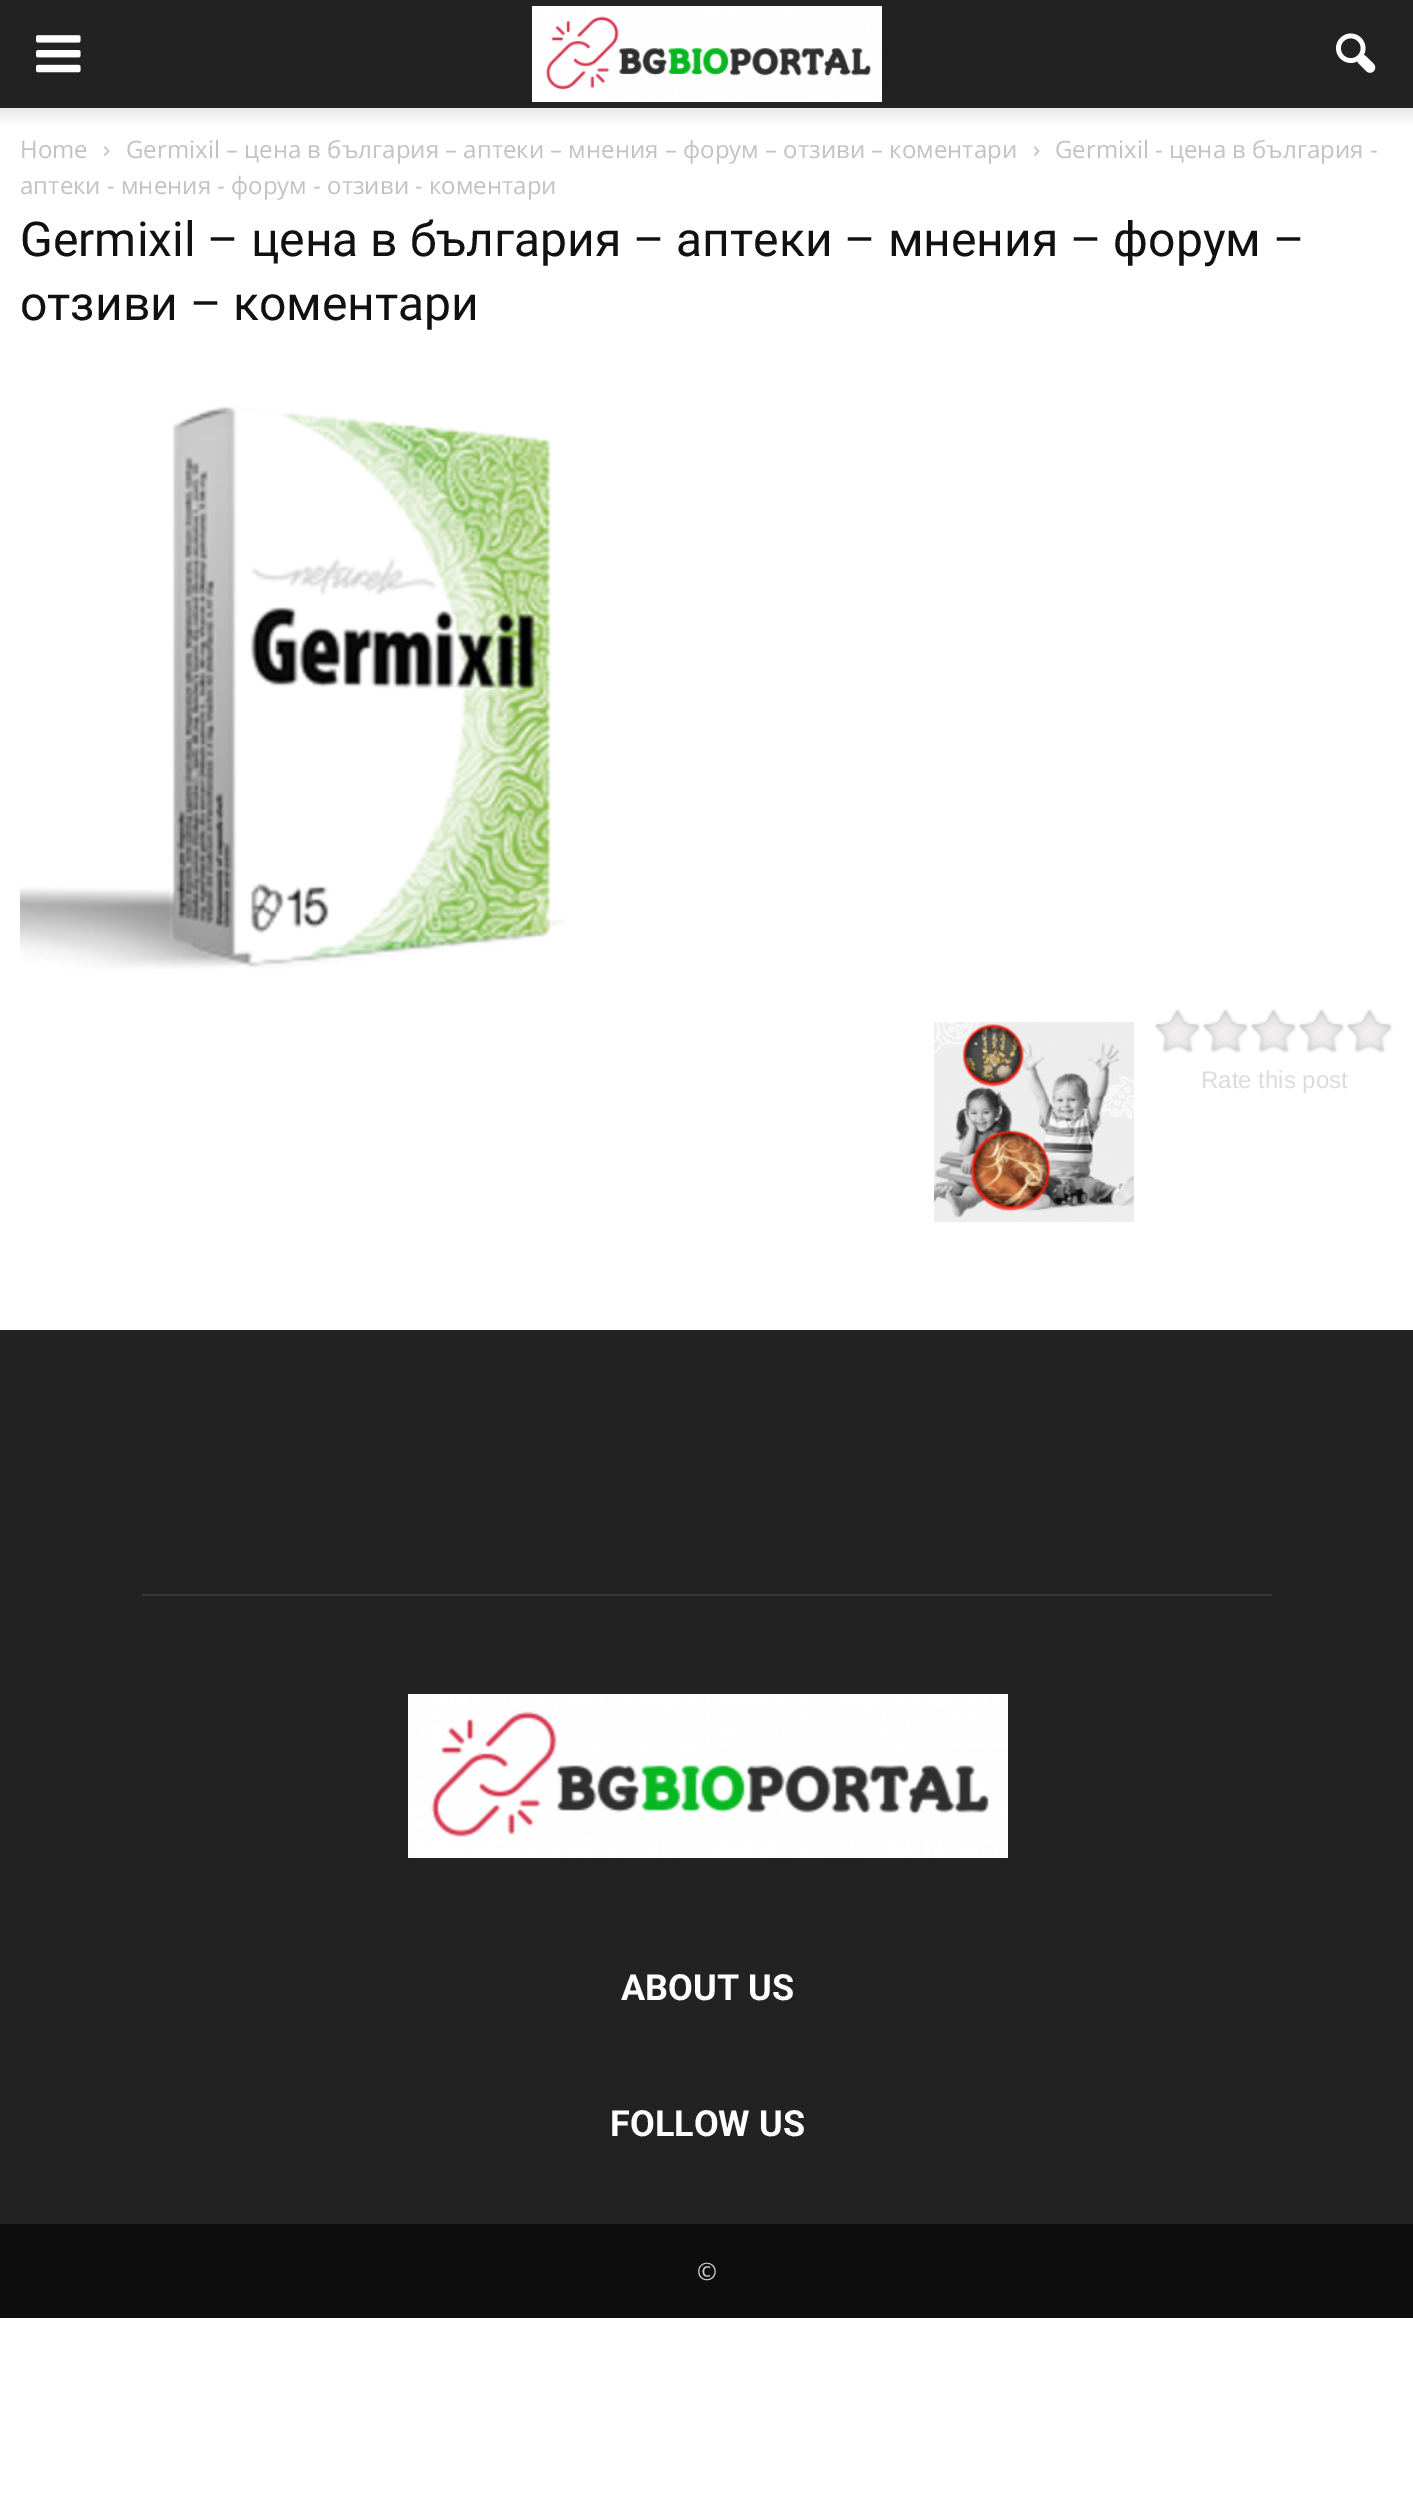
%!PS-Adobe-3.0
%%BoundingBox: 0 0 1413 2506
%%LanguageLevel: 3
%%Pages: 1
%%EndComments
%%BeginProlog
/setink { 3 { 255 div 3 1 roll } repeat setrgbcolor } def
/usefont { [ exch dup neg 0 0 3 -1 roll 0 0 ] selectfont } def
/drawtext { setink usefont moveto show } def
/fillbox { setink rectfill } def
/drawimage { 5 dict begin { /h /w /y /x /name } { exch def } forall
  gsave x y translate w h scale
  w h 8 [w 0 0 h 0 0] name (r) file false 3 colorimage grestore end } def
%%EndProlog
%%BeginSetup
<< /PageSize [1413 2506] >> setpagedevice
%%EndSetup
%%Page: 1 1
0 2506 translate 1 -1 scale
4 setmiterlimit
0 0 1413 2506 255 255 255 fillbox
0 0 1413 108 34 34 34 fillbox
(assets/img1.rgb) 36 35 45 38 drawimage
(assets/img2.rgb) 532 6 350 96 drawimage
(assets/img3.rgb) 1336 33 40 40 drawimage
(assets/img4.rgb) 0 108 1413 17 drawimage
(Home) 20 158 /OpenSans-Regular 24 195 195 195 drawtext
(assets/img5.rgb) 104 146 6 10 drawimage
(Germixil – цена в българия – аптеки – мнения – форум – отзиви – коментари) 126 158 /OpenSans-Regular 24 195 195 195 drawtext
(assets/img5.rgb) 1034 146 6 10 drawimage
(Germixil - цена в българия -) 1055 158 /OpenSans-Regular 24 195 195 195 drawtext
(аптеки - мнения - форум - отзиви - коментари) 20 194 /OpenSans-Regular 24 195 195 195 drawtext
(Germixil – цена в българия – аптеки – мнения – форум –) 20 256 /Roboto-Regular 48 17 17 17 drawtext
(отзиви – коментари) 20 320 /Roboto-Regular 48 17 17 17 drawtext
(assets/img6.rgb) 20 406 546 563 drawimage
(assets/img7.rgb) 934 1022 200 200 drawimage
(assets/img8.rgb) 1155 1009 238 44 drawimage
(Rate this post) 1201 1088 /LiberationSans-Regular 24 220 220 220 drawtext
0 1330 1413 894 34 34 34 fillbox
142 1594 1130 2 56 56 56 fillbox
(assets/img9.rgb) 408 1694 600 164 drawimage
(ABOUT US) 621 2000 /Roboto-Bold 36 255 255 255 drawtext
(FOLLOW US) 610 2136 /Roboto-Bold 36 255 255 255 drawtext
0 2224 1413 94 13 13 13 fillbox
(©) 697 2280 /OpenSans-Regular 24 204 204 204 drawtext
showpage
%%EOF
